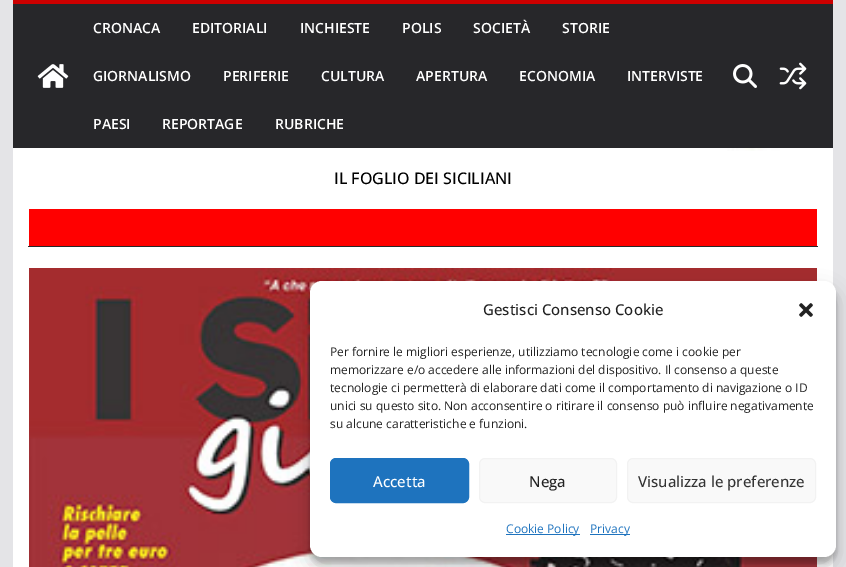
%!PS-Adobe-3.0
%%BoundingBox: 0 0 846 567
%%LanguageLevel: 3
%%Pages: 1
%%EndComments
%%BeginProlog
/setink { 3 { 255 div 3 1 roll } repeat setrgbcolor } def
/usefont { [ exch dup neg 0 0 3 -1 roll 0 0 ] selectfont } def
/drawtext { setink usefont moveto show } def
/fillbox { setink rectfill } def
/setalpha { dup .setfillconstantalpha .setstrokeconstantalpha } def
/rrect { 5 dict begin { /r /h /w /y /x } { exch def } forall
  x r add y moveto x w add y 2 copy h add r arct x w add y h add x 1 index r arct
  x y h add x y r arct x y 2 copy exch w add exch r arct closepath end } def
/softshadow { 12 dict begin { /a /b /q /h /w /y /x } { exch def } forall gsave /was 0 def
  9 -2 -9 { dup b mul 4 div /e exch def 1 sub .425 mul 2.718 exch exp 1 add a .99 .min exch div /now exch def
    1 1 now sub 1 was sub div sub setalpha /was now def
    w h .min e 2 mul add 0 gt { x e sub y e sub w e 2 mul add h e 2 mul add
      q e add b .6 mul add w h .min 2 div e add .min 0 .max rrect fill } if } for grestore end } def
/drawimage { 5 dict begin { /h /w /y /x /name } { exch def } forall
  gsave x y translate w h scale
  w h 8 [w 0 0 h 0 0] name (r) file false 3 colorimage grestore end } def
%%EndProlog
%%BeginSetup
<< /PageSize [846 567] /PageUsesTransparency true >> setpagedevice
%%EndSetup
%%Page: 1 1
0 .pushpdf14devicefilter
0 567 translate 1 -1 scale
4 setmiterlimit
0 0 846 567 228 228 231 fillbox
13 4 820 144 39 39 42 fillbox
13 0 820 4 204 0 0 fillbox
(assets/img1.rgb) 37 64 32 24 drawimage
(CRONACA) 93 33 /OpenSans-SemiBold 14 255 255 255 drawtext
(EDITORIALI) 192 33 /OpenSans-SemiBold 14 255 255 255 drawtext
(INCHIESTE) 300 33 /OpenSans-SemiBold 14 255 255 255 drawtext
(POLIS) 402 33 /OpenSans-SemiBold 14 255 255 255 drawtext
(SOCIETÀ) 473 33 /OpenSans-SemiBold 14 255 255 255 drawtext
(STORIE) 562 33 /OpenSans-SemiBold 14 255 255 255 drawtext
(GIORNALISMO) 93 81 /OpenSans-SemiBold 14 255 255 255 drawtext
(PERIFERIE) 223 81 /OpenSans-SemiBold 14 255 255 255 drawtext
(CULTURA) 321 81 /OpenSans-SemiBold 14 255 255 255 drawtext
(APERTURA) 416 81 /OpenSans-SemiBold 14 255 255 255 drawtext
(ECONOMIA) 519 81 /OpenSans-SemiBold 14 255 255 255 drawtext
(INTERVISTE) 627 81 /OpenSans-SemiBold 14 255 255 255 drawtext
(PAESI) 93 129 /OpenSans-SemiBold 14 255 255 255 drawtext
(REPORTAGE) 162 129 /OpenSans-SemiBold 14 255 255 255 drawtext
(RUBRICHE) 275 129 /OpenSans-SemiBold 14 255 255 255 drawtext
(assets/img2.rgb) 733 64 24 24 drawimage
(assets/img3.rgb) 779 62 28 28 drawimage
13 148 820 419 255 255 255 fillbox
(assets/img4.rgb) 36 148 775 3 drawimage
(IL FOGLIO DEI SICILIANI) 334 184 /OpenSans-Medium 16 0 0 0 drawtext
29 209 788 37 255 0 0 fillbox
28 246 790 1 39 39 42 fillbox
(assets/img5.rgb) 29 268 788 299 drawimage
0 0 0 setink
310 287 526 276 12 3 0.23 softshadow
310 291 526 276 12 10 0.19 softshadow
255 255 255 setink
310 281 526 276 12 rrect fill
(Gestisci Consenso Cookie) 483 315 /OpenSans-Medium 15 34 34 34 drawtext
(assets/img6.rgb) 799 303 14 14 drawimage
(Per fornire le migliori esperienze, utilizziamo tecnologie come i cookie per) 330 356 /OpenSans-Regular 12 34 34 34 drawtext
(memorizzare e/o accedere alle informazioni del dispositivo. Il consenso a queste) 330 374 /OpenSans-Regular 12 34 34 34 drawtext
(tecnologie ci permetterà di elaborare dati come il comportamento di navigazione o ID) 330 392 /OpenSans-Regular 12 34 34 34 drawtext
(unici su questo sito. Non acconsentire o ritirare il consenso può influire negativamente) 330 410 /OpenSans-Regular 12 34 34 34 drawtext
(su alcune caratteristiche e funzioni.) 330 428 /OpenSans-Regular 12 34 34 34 drawtext
30 115 190 setink
330.5 458.5 138 44 5.5 rrect gsave fill grestore
stroke
(Accetta) 373 487 /OpenSans-Medium 15 255 255 255 drawtext
249 249 249 setink
479.5 458.5 137 44 5.5 rrect gsave fill grestore
242 242 242 setink
stroke
(Nega) 529 487 /OpenSans-Medium 15 34 34 34 drawtext
249 249 249 setink
627.5 458.5 188 44 5.5 rrect gsave fill grestore
242 242 242 setink
stroke
(Visualizza le preferenze) 638 487 /OpenSans-Medium 15 51 51 51 drawtext
506 534 74 1 30 115 190 fillbox
(Cookie Policy) 506 533 /OpenSans-Regular 12 30 115 190 drawtext
590 534 40 1 30 115 190 fillbox
(Privacy) 590 533 /OpenSans-Regular 12 30 115 190 drawtext
.poppdf14devicefilter showpage
%%EOF
